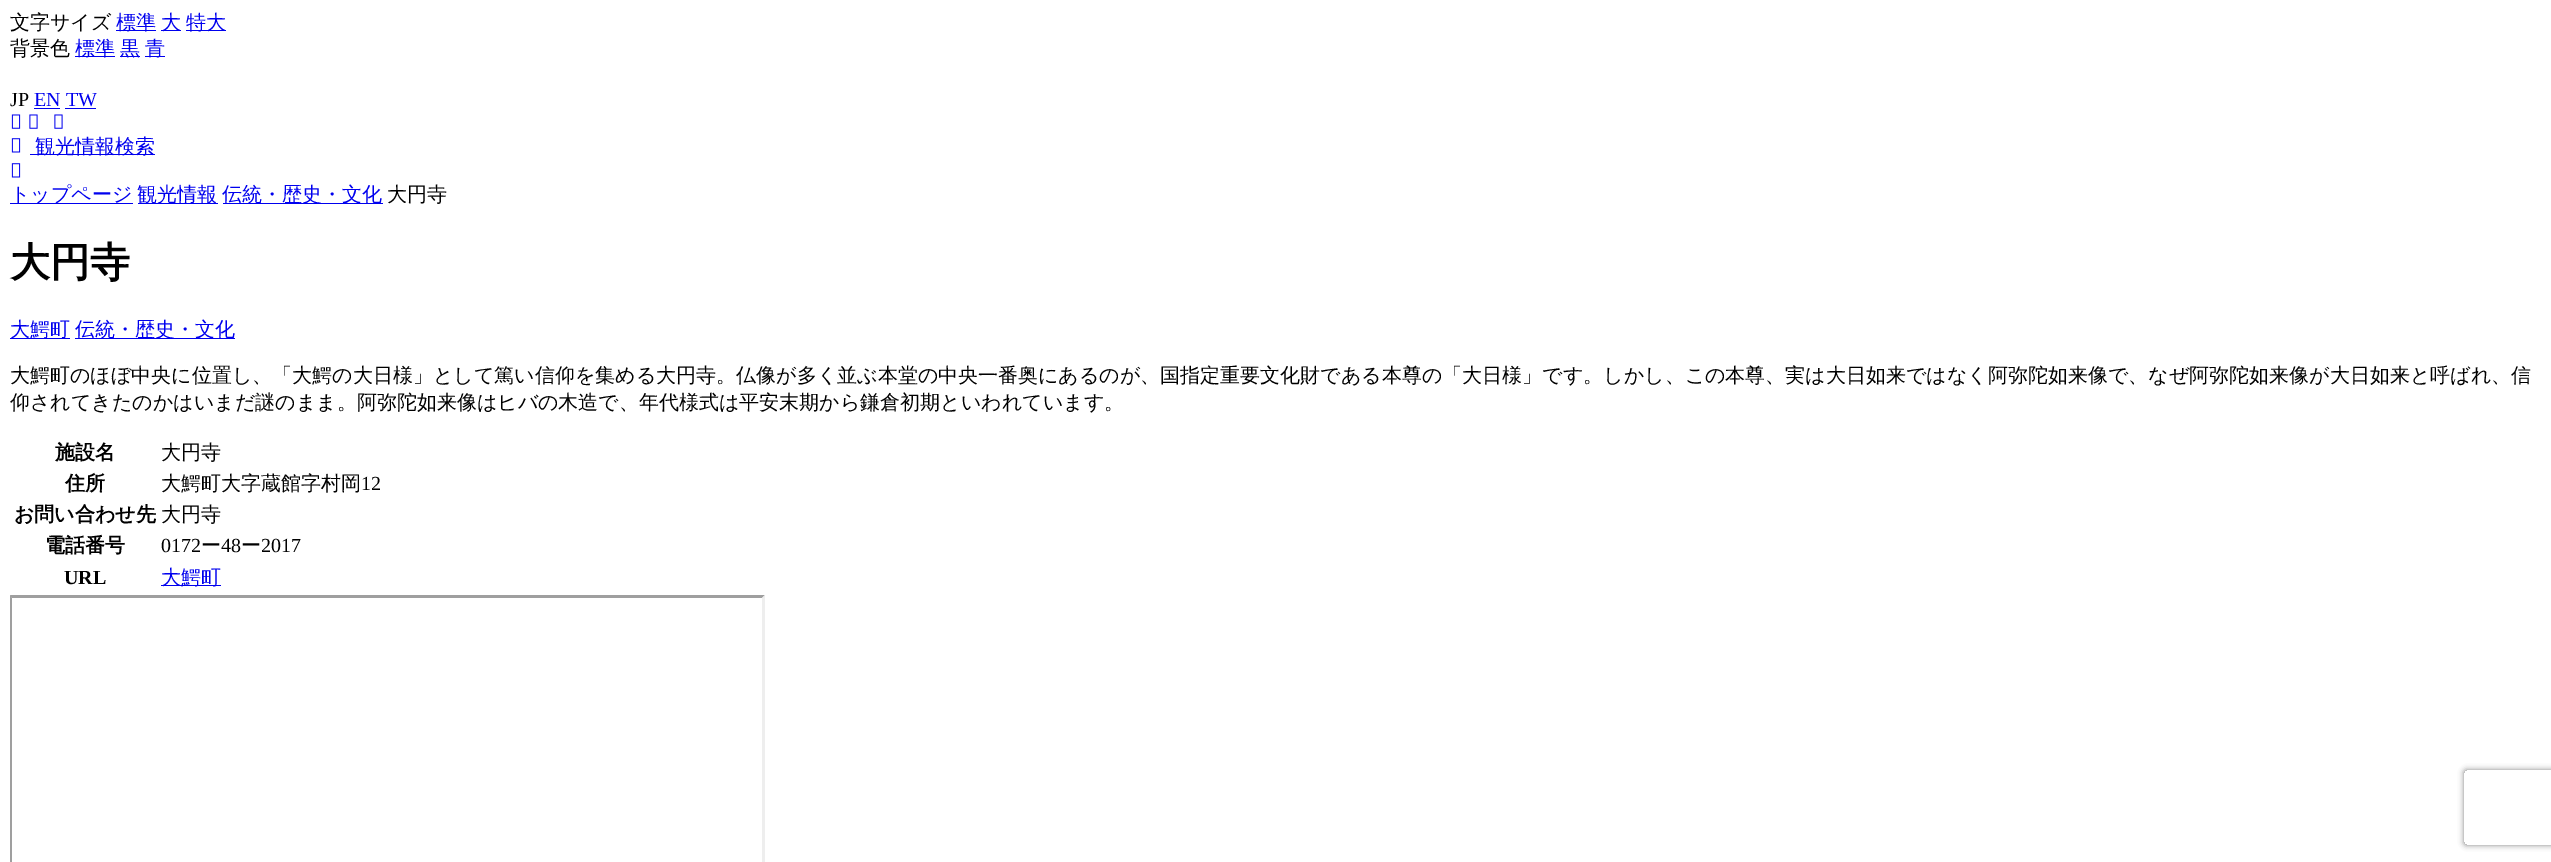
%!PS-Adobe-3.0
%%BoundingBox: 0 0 2551 862
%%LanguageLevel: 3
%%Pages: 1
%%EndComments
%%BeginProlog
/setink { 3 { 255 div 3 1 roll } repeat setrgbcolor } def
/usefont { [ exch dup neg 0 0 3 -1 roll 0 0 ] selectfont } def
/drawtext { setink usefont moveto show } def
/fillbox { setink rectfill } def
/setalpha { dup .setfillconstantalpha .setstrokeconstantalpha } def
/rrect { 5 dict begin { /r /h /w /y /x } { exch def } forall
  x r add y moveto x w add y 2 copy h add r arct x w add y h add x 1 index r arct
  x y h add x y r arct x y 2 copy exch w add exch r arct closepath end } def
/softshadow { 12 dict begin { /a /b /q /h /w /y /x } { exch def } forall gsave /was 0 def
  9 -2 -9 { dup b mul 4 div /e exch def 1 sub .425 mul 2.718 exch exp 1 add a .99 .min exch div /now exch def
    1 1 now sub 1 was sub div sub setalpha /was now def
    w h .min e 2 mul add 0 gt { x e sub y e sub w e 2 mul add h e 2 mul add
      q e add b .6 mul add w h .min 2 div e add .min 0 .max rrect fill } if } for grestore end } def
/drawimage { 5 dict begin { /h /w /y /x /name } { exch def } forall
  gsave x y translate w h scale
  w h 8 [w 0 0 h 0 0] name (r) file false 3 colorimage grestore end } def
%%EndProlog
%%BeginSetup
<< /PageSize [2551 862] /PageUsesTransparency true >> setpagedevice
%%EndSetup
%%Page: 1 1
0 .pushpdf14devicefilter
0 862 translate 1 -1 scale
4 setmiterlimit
0 0 2551 862 255 255 255 fillbox
(文字サイズ) 10 29 /WenQuanYiZenHei-Medium 20 0 0 0 drawtext
116 30 40 1 0 0 238 fillbox
(標準) 116 29 /WenQuanYiZenHei-Medium 20 0 0 238 drawtext
161 30 20 1 0 0 238 fillbox
(大) 161 29 /WenQuanYiZenHei-Medium 20 0 0 238 drawtext
186 30 40 1 0 0 238 fillbox
(特大) 186 29 /WenQuanYiZenHei-Medium 20 0 0 238 drawtext
(背景色) 10 55 /WenQuanYiZenHei-Medium 20 0 0 0 drawtext
75 56 40 1 0 0 238 fillbox
(標準) 75 55 /WenQuanYiZenHei-Medium 20 0 0 238 drawtext
120 56 20 1 0 0 238 fillbox
(黒) 120 55 /WenQuanYiZenHei-Medium 20 0 0 238 drawtext
145 56 20 1 0 0 238 fillbox
(青) 145 55 /WenQuanYiZenHei-Medium 20 0 0 238 drawtext
(JP) 10 106 /LiberationSerif-Regular 20 0 0 0 drawtext
(EN TW) 34 106 /LiberationSerif-Regular 20 0 0 238 drawtext
34 108 26 1 0 0 238 fillbox
65 108 31 1 0 0 238 fillbox
(assets/img1.rgb) 11 114 10 15 drawimage
(assets/img2.rgb) 29 114 9 15 drawimage
(assets/img2.rgb) 54 114 9 15 drawimage
(assets/img3.rgb) 11 138 10 15 drawimage
30 154 125 1 0 0 238 fillbox
(観光情報検索) 35 153 /WenQuanYiZenHei-Medium 20 0 0 238 drawtext
(assets/img3.rgb) 11 163 10 15 drawimage
10 203 123 1 0 0 238 fillbox
(トップページ) 10 201 /WenQuanYiZenHei-Medium 20 0 0 238 drawtext
138 203 80 1 0 0 238 fillbox
(観光情報) 137 201 /WenQuanYiZenHei-Medium 20 0 0 238 drawtext
223 203 160 1 0 0 238 fillbox
(伝統・歴史・文化) 222 201 /WenQuanYiZenHei-Medium 20 0 0 238 drawtext
(大円寺) 387 201 /WenQuanYiZenHei-Medium 20 0 0 0 drawtext
(大円寺) 10 276 /WenQuanYiZenHei-Bold 40 0 0 0 drawtext
10 338 60 1 0 0 238 fillbox
(大鰐町) 10 336 /WenQuanYiZenHei-Medium 20 0 0 238 drawtext
75 338 160 1 0 0 238 fillbox
(伝統・歴史・文化) 75 336 /WenQuanYiZenHei-Medium 20 0 0 238 drawtext
(大鰐町のほぼ中央に位置し、「大鰐の大日様」として篤い信仰を集める大円寺。仏像が多く並ぶ本堂の中央一番奥にあるのが、国指定重要文化財である本尊の「大日様」です。しかし、この本尊、実は大日如来ではなく阿弥陀如来像で、なぜ阿弥陀如来像が大日如来と呼ばれ、信) 10 382 /WenQuanYiZenHei-Medium 20 0 0 0 drawtext
(仰されてきたのかはいまだ謎のまま。阿弥陀如来像はヒバの木造で、年代様式は平安末期から鎌倉初期といわれています。) 10 409 /WenQuanYiZenHei-Medium 20 0 0 0 drawtext
(施設名) 55 459 /WenQuanYiZenHei-Bold 20 0 0 0 drawtext
(大円寺) 161 459 /WenQuanYiZenHei-Medium 20 0 0 0 drawtext
(住所) 65 490 /WenQuanYiZenHei-Bold 20 0 0 0 drawtext
(大鰐町大字蔵館字村岡) 161 490 /WenQuanYiZenHei-Medium 20 0 0 0 drawtext
(12) 361 490 /LiberationSerif-Regular 20 0 0 0 drawtext
(お問い合わせ先) 14 521 /WenQuanYiZenHei-Bold 20 0 0 0 drawtext
(大円寺) 161 521 /WenQuanYiZenHei-Medium 20 0 0 0 drawtext
(電話番号) 45 552 /WenQuanYiZenHei-Bold 20 0 0 0 drawtext
(0172) 161 552 /LiberationSerif-Regular 20 0 0 0 drawtext
(ー) 201 552 /WenQuanYiZenHei-Medium 20 0 0 0 drawtext
(48) 221 552 /LiberationSerif-Regular 20 0 0 0 drawtext
(ー) 241 552 /WenQuanYiZenHei-Medium 20 0 0 0 drawtext
(2017) 261 552 /LiberationSerif-Regular 20 0 0 0 drawtext
(URL) 64 584 /LiberationSerif-Bold 20 0 0 0 drawtext
161 585 60 1 0 0 238 fillbox
(大鰐町) 161 584 /WenQuanYiZenHei-Medium 20 0 0 238 drawtext
159 159 159 setink
10 595 moveto 765 595 lineto 762 598 lineto 12 598 lineto closepath fill
10 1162 moveto 10 595 lineto 12 598 lineto 12 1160 lineto closepath fill
238 238 238 setink
765 595 moveto 765 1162 lineto 762 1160 lineto 762 598 lineto closepath fill
gsave
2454 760 moveto 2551 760 lineto 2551 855 lineto 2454 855 lineto closepath 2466.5 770 moveto 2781.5 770 lineto 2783 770 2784 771 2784 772.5 curveto 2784 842.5 lineto 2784 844 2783 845 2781.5 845 curveto 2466.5 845 lineto 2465 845 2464 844 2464 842.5 curveto 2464 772.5 lineto 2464 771 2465 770 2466.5 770 curveto closepath eoclip newpath
128 128 128 setink
2464 770 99 75 2.5 3 1 softshadow
grestore
.poppdf14devicefilter showpage
%%EOF
